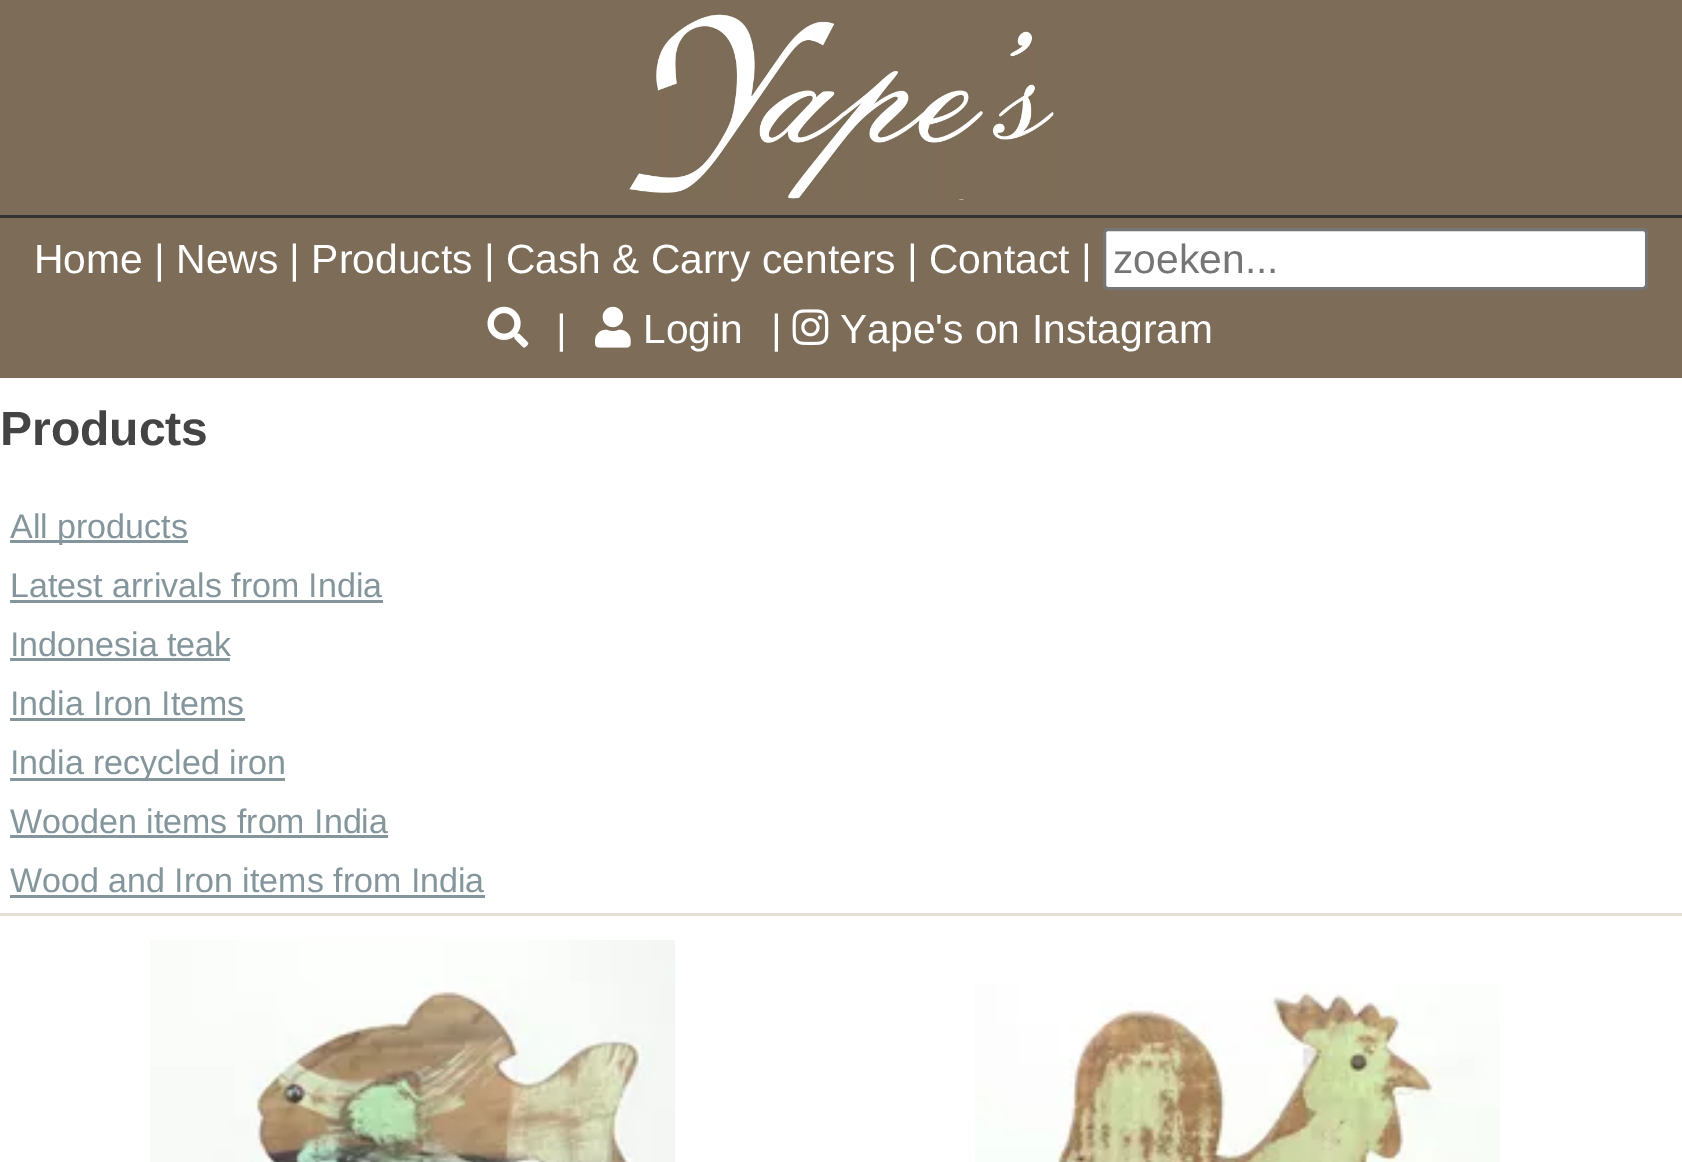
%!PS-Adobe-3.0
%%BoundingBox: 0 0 1682 1162
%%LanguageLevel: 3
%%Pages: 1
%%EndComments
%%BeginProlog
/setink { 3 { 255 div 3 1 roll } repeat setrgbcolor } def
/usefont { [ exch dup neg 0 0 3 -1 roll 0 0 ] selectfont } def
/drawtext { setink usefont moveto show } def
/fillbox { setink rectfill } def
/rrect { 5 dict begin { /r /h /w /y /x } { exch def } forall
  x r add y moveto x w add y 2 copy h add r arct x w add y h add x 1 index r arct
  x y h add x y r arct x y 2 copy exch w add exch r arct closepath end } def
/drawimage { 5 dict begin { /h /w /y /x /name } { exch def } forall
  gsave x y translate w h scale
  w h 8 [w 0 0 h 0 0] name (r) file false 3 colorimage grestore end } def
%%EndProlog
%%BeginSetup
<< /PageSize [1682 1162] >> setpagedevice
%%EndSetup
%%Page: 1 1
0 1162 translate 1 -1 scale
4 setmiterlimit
0 0 1682 1162 255 255 255 fillbox
0 0 1682 378 125 108 87 fillbox
(assets/img1.rgb) 629 14 425 186 drawimage
0 215 1682 3 51 51 51 fillbox
(Home | News | Products | Cash & Carry centers | Contact |) 34 273 /LiberationSans-Regular 40.8 255 255 255 drawtext
1104.5 229.5 542 59 3.5 rrect gsave fill grestore
118 118 118 setink
3 setlinewidth
stroke
(zoeken...) 1113 273 /LiberationSans-Regular 40.8 117 117 117 drawtext
(assets/img2.rgb) 487 306 42 42 drawimage
(|) 556 343 /LiberationSans-Regular 40.8 255 255 255 drawtext
(assets/img3.rgb) 595 306 36 42 drawimage
(Login) 643 343 /LiberationSans-Regular 40.8 255 255 255 drawtext
(|) 771 343 /LiberationSans-Regular 40.8 255 255 255 drawtext
(assets/img4.rgb) 792 309 37 37 drawimage
(Yape's on Instagram) 840 343 /LiberationSans-Regular 40.8 255 255 255 drawtext
(Products) 0 445 /LiberationSans-Bold 48 68 68 68 drawtext
10 540 178 3 132 150 156 fillbox
(All products) 10 538 /LiberationSans-Regular 34 132 150 156 drawtext
(Latest arrivals from India) 10 597 /LiberationSans-Regular 34 132 150 156 drawtext
10 600 373 3 132 150 156 fillbox
(Indonesia teak) 10 656 /LiberationSans-Regular 34 132 150 156 drawtext
10 658 220 3 132 150 156 fillbox
(India Iron Items) 10 715 /LiberationSans-Regular 34 132 150 156 drawtext
10 718 235 3 132 150 156 fillbox
10 778 275 3 132 150 156 fillbox
(India recycled iron) 10 774 /LiberationSans-Regular 34 132 150 156 drawtext
(Wooden items from India) 10 833 /LiberationSans-Regular 34 132 150 156 drawtext
10 835 378 3 132 150 156 fillbox
(Wood and Iron items from India) 10 892 /LiberationSans-Regular 34 132 150 156 drawtext
10 895 475 3 132 150 156 fillbox
0 913 1682 3 230 223 214 fillbox
(assets/img5.rgb) 150 940 525 222 drawimage
(assets/img6.rgb) 975 983 525 179 drawimage
showpage
%%EOF
